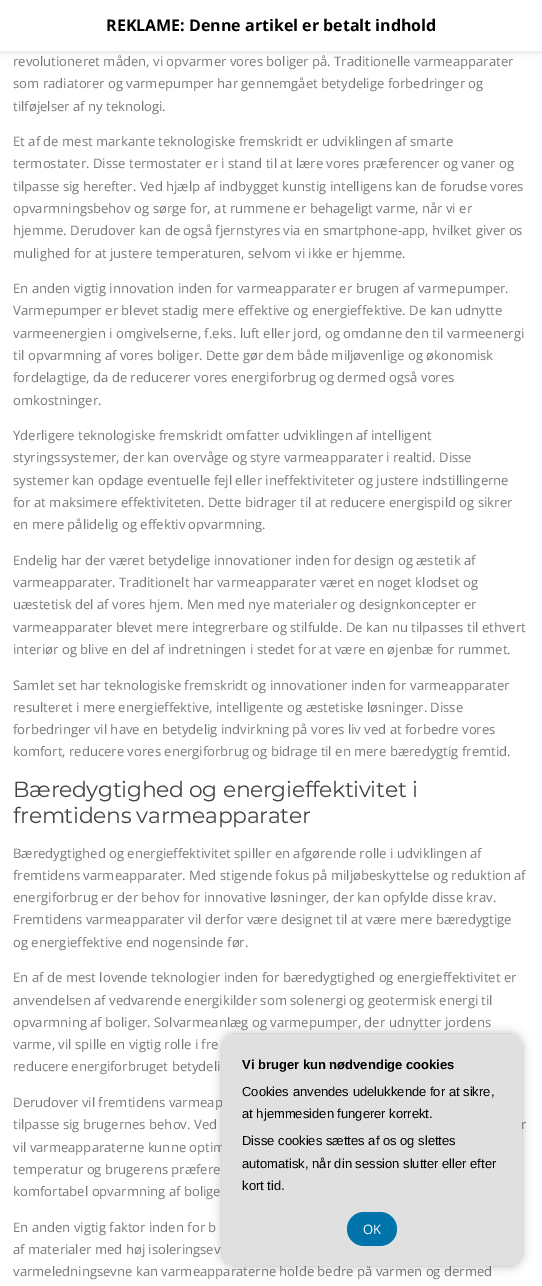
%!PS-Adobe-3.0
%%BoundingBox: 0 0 542 1286
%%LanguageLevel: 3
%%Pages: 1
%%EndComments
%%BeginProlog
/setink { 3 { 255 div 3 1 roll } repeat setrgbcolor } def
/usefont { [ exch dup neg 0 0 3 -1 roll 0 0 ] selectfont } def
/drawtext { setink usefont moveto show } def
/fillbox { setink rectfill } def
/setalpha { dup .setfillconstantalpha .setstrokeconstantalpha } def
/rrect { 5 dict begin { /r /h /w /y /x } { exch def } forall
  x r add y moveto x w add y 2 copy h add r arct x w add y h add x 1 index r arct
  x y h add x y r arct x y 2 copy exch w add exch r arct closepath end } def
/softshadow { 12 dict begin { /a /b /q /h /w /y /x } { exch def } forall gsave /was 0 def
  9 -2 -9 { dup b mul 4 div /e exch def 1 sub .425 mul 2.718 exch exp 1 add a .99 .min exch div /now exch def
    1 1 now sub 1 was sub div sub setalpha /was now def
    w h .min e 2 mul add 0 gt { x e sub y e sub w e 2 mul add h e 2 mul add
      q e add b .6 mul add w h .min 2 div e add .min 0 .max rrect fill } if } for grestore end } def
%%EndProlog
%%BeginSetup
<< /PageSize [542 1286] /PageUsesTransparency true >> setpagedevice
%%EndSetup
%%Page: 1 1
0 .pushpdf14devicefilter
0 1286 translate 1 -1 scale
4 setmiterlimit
0 0 542 1286 255 255 255 fillbox
0 0 0 setink
0 2 542 51 0 2.5 0.1 softshadow
0 0 542 51 255 255 255 fillbox
(REKLAME: Denne artikel er betalt indhold) 106 31 /OpenSans-Bold 16 0 0 0 drawtext
(revolutioneret måden, vi opvarmer vores boliger på. Traditionelle varmeapparater) 13 66 /OpenSans-Regular 13.1 119 119 119 drawtext
(som radiatorer og varmepumper har gennemgået betydelige forbedringer og) 13 88 /OpenSans-Regular 13.1 119 119 119 drawtext
(tilføjelser af ny teknologi.) 13 111 /OpenSans-Regular 13.1 119 119 119 drawtext
(Et af de mest markante teknologiske fremskridt er udviklingen af smarte) 13 146 /OpenSans-Regular 13.1 119 119 119 drawtext
(termostater. Disse termostater er i stand til at lære vores præferencer og vaner og) 13 168 /OpenSans-Regular 13.1 119 119 119 drawtext
(tilpasse sig herefter. Ved hjælp af indbygget kunstig intelligens kan de forudse vores) 13 191 /OpenSans-Regular 13.1 119 119 119 drawtext
(opvarmningsbehov og sørge for, at rummene er behageligt varme, når vi er) 13 213 /OpenSans-Regular 13.1 119 119 119 drawtext
(hjemme. Derudover kan de også fjernstyres via en smartphone-app, hvilket giver os) 13 235 /OpenSans-Regular 13.1 119 119 119 drawtext
(mulighed for at justere temperaturen, selvom vi ikke er hjemme.) 13 258 /OpenSans-Regular 13.1 119 119 119 drawtext
(En anden vigtig innovation inden for varmeapparater er brugen af varmepumper.) 13 293 /OpenSans-Regular 13.1 119 119 119 drawtext
(Varmepumper er blevet stadig mere effektive og energieffektive. De kan udnytte) 13 315 /OpenSans-Regular 13.1 119 119 119 drawtext
(varmeenergien i omgivelserne, f.eks. luft eller jord, og omdanne den til varmeenergi) 13 338 /OpenSans-Regular 13.1 119 119 119 drawtext
(til opvarmning af vores boliger. Dette gør dem både miljøvenlige og økonomisk) 13 360 /OpenSans-Regular 13.1 119 119 119 drawtext
(fordelagtige, da de reducerer vores energiforbrug og dermed også vores) 13 382 /OpenSans-Regular 13.1 119 119 119 drawtext
(omkostninger.) 13 405 /OpenSans-Regular 13.1 119 119 119 drawtext
(Yderligere teknologiske fremskridt omfatter udviklingen af intelligent) 13 440 /OpenSans-Regular 13.1 119 119 119 drawtext
(styringssystemer, der kan overvåge og styre varmeapparater i realtid. Disse) 13 462 /OpenSans-Regular 13.1 119 119 119 drawtext
(systemer kan opdage eventuelle fejl eller ineffektiviteter og justere indstillingerne) 13 485 /OpenSans-Regular 13.1 119 119 119 drawtext
(for at maksimere effektiviteten. Dette bidrager til at reducere energispild og sikrer) 13 507 /OpenSans-Regular 13.1 119 119 119 drawtext
(en mere pålidelig og effektiv opvarmning.) 13 529 /OpenSans-Regular 13.1 119 119 119 drawtext
(Endelig har der været betydelige innovationer inden for design og æstetik af) 13 565 /OpenSans-Regular 13.1 119 119 119 drawtext
(varmeapparater. Traditionelt har varmeapparater været en noget klodset og) 13 587 /OpenSans-Regular 13.1 119 119 119 drawtext
(uæstetisk del af vores hjem. Men med nye materialer og designkoncepter er) 13 609 /OpenSans-Regular 13.1 119 119 119 drawtext
(varmeapparater blevet mere integrerbare og stilfulde. De kan nu tilpasses til ethvert) 13 632 /OpenSans-Regular 13.1 119 119 119 drawtext
(interiør og blive en del af indretningen i stedet for at være en øjenbæ for rummet.) 13 654 /OpenSans-Regular 13.1 119 119 119 drawtext
(Samlet set har teknologiske fremskridt og innovationer inden for varmeapparater) 13 690 /OpenSans-Regular 13.1 119 119 119 drawtext
(resulteret i mere energieffektive, intelligente og æstetiske løsninger. Disse) 13 712 /OpenSans-Regular 13.1 119 119 119 drawtext
(forbedringer vil have en betydelig indvirkning på vores liv ved at forbedre vores) 13 734 /OpenSans-Regular 13.1 119 119 119 drawtext
(komfort, reducere vores energiforbrug og bidrage til en mere bæredygtig fremtid.) 13 756 /OpenSans-Regular 13.1 119 119 119 drawtext
/Montserrat-Regular 21.9 usefont
68 68 68 setink
13 797 moveto -0.3 0 (Bæredygtighed og energieffektivitet i) ashow
13 823 moveto -0.3 0 (fremtidens varmeapparater) ashow
(Bæredygtighed og energieffektivitet spiller en afgørende rolle i udviklingen af) 13 858 /OpenSans-Regular 13.1 119 119 119 drawtext
(fremtidens varmeapparater. Med stigende fokus på miljøbeskyttelse og reduktion af) 13 880 /OpenSans-Regular 13.1 119 119 119 drawtext
(energiforbrug er der behov for innovative løsninger, der kan opfylde disse krav.) 13 902 /OpenSans-Regular 13.1 119 119 119 drawtext
(Fremtidens varmeapparater vil derfor være designet til at være mere bæredygtige) 13 924 /OpenSans-Regular 13.1 119 119 119 drawtext
(og energieffektive end nogensinde før.) 13 947 /OpenSans-Regular 13.1 119 119 119 drawtext
(En af de mest lovende teknologier inden for bæredygtighed og energieffektivitet er) 13 982 /OpenSans-Regular 13.1 119 119 119 drawtext
(anvendelsen af vedvarende energikilder som solenergi og geotermisk energi til) 13 1005 /OpenSans-Regular 13.1 119 119 119 drawtext
(opvarmning af boliger. Solvarmeanlæg og varmepumper, der udnytter jordens) 13 1027 /OpenSans-Regular 13.1 119 119 119 drawtext
(varme, vil spille en vigtig rolle i fre) 13 1049 /OpenSans-Regular 13.1 119 119 119 drawtext
(reducere energiforbruget betydeli) 13 1071 /OpenSans-Regular 13.1 119 119 119 drawtext
(Derudover vil fremtidens varmeap) 13 1107 /OpenSans-Regular 13.1 119 119 119 drawtext
(tilpasse sig brugernes behov. Ved) 13 1129 /OpenSans-Regular 13.1 119 119 119 drawtext
(r) 521 1129 /OpenSans-Regular 13.1 119 119 119 drawtext
(vil varmeapparaterne kunne optim) 13 1152 /OpenSans-Regular 13.1 119 119 119 drawtext
(temperatur og brugerens præfere) 13 1174 /OpenSans-Regular 13.1 119 119 119 drawtext
(komfortabel opvarmning af bolige) 13 1196 /OpenSans-Regular 13.1 119 119 119 drawtext
(En anden vigtig faktor inden for b) 13 1232 /OpenSans-Regular 13.1 119 119 119 drawtext
(af materialer med høj isoleringsev) 13 1254 /OpenSans-Regular 13.1 119 119 119 drawtext
(varmeledningsevne kan varmeapparaterne holde bedre på varmen og dermed) 13 1276 /OpenSans-Regular 13.1 119 119 119 drawtext
0 0 0 setink
222 1034 300 232 12 5 0.3 softshadow
224 224 224 setink
222 1034 300 232 12 rrect fill
(Vi bruger kun nødvendige cookies) 242 1069 /LiberationSans-Bold 13 0 0 0 drawtext
(Cookies anvendes udelukkende for at sikre,) 242 1096 /LiberationSans-Regular 13 0 0 0 drawtext
(at hjemmesiden fungerer korrekt.) 242 1118 /LiberationSans-Regular 13 0 0 0 drawtext
(Disse cookies sættes af os og slettes) 242 1145 /LiberationSans-Regular 13 0 0 0 drawtext
(automatisk, når din session slutter eller efter) 242 1168 /LiberationSans-Regular 13 0 0 0 drawtext
(kort tid.) 242 1190 /LiberationSans-Regular 13 0 0 0 drawtext
0 115 170 setink
347 1212 50 34 17 rrect fill
(OK) 363 1234 /OpenSans-Regular 13.1 255 255 255 drawtext
.poppdf14devicefilter showpage
%%EOF
